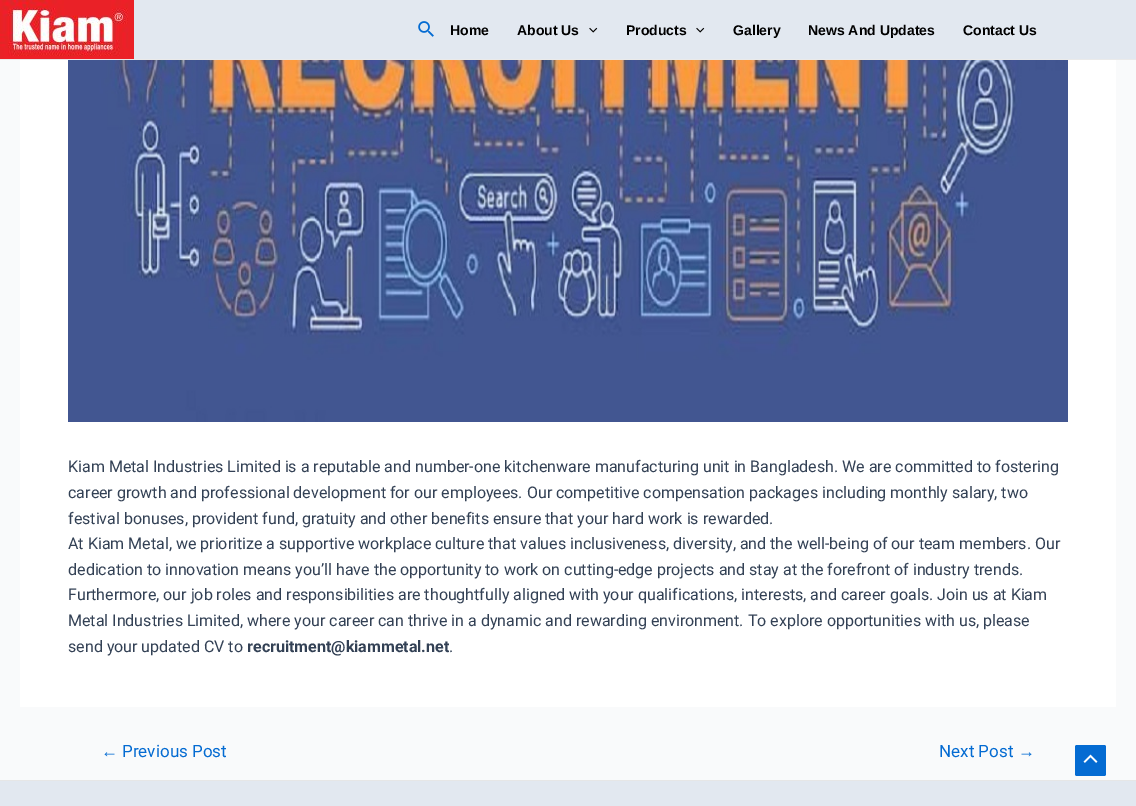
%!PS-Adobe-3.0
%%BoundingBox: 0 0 1136 806
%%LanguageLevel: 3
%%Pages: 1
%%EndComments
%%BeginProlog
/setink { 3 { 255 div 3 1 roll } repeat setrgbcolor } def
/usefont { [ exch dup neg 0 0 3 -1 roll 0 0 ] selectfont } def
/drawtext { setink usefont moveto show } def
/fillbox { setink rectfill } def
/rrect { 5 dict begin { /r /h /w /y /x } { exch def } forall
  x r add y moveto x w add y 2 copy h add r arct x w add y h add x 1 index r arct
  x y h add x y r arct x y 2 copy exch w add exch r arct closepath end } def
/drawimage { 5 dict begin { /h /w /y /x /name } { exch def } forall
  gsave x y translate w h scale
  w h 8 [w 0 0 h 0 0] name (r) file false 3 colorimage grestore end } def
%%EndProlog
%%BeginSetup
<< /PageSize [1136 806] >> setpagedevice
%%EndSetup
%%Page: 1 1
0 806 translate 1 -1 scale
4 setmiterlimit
0 0 1136 806 249 250 251 fillbox
134 0 1002 59 226 232 240 fillbox
0 59 1136 1 234 234 234 fillbox
(assets/img1.rgb) 0 0 134 59 drawimage
(assets/img2.rgb) 418 21 16 16 drawimage
(Home) 450 35 /LiberationSans-Bold 14 0 0 0 drawtext
(About Us) 517 35 /LiberationSans-Bold 14 0 0 0 drawtext
(assets/img3.rgb) 589 27 9 6 drawimage
(Products) 626 35 /LiberationSans-Bold 14 0 0 0 drawtext
(assets/img3.rgb) 696 27 9 6 drawimage
(Gallery) 733 35 /LiberationSans-Bold 14 0 0 0 drawtext
(News And Updates) 808 35 /LiberationSans-Bold 14 0 0 0 drawtext
(Contact Us) 963 35 /LiberationSans-Bold 14 0 0 0 drawtext
20 60 1096 647 255 255 255 fillbox
(assets/img4.rgb) 68 60 1000 362 drawimage
(Kiam Metal Industries Limited is a reputable and number-one kitchenware manufacturing unit in Bangladesh. We are committed to fostering) 68 472 /Roboto-Regular 16 51 65 85 drawtext
(career growth and professional development for our employees. Our competitive compensation packages including monthly salary, two) 68 498 /Roboto-Regular 16 51 65 85 drawtext
(festival bonuses, provident fund, gratuity and other benefits ensure that your hard work is rewarded.) 68 524 /Roboto-Regular 16 51 65 85 drawtext
(At Kiam Metal, we prioritize a supportive workplace culture that values inclusiveness, diversity, and the well-being of our team members. Our) 68 549 /Roboto-Regular 16 51 65 85 drawtext
(dedication to innovation means you’ll have the opportunity to work on cutting-edge projects and stay at the forefront of industry trends.) 68 575 /Roboto-Regular 16 51 65 85 drawtext
(Furthermore, our job roles and responsibilities are thoughtfully aligned with your qualifications, interests, and career goals. Join us at Kiam) 68 600 /Roboto-Regular 16 51 65 85 drawtext
(Metal Industries Limited, where your career can thrive in a dynamic and rewarding environment. To explore opportunities with us, please) 68 626 /Roboto-Regular 16 51 65 85 drawtext
(send your updated CV to) 68 652 /Roboto-Regular 16 51 65 85 drawtext
(recruitment@kiammetal.net) 247 652 /Roboto-Bold 16 51 65 85 drawtext
(.) 449 652 /Roboto-Regular 16 51 65 85 drawtext
(←) 101 757 /LiberationSans-Regular 17 4 107 210 drawtext
(Previous Post) 122 757 /Roboto-Regular 17 4 107 210 drawtext
(Next Post) 939 757 /Roboto-Regular 17 4 107 210 drawtext
(→) 1018 757 /LiberationSans-Regular 17 4 107 210 drawtext
0 781 1136 25 226 232 240 fillbox
0 780 1136 1 230 230 230 fillbox
4 107 210 setink
1075 745 31 31 2 rrect fill
(assets/img5.rgb) 1083 754 15 9 drawimage
showpage
%%EOF
